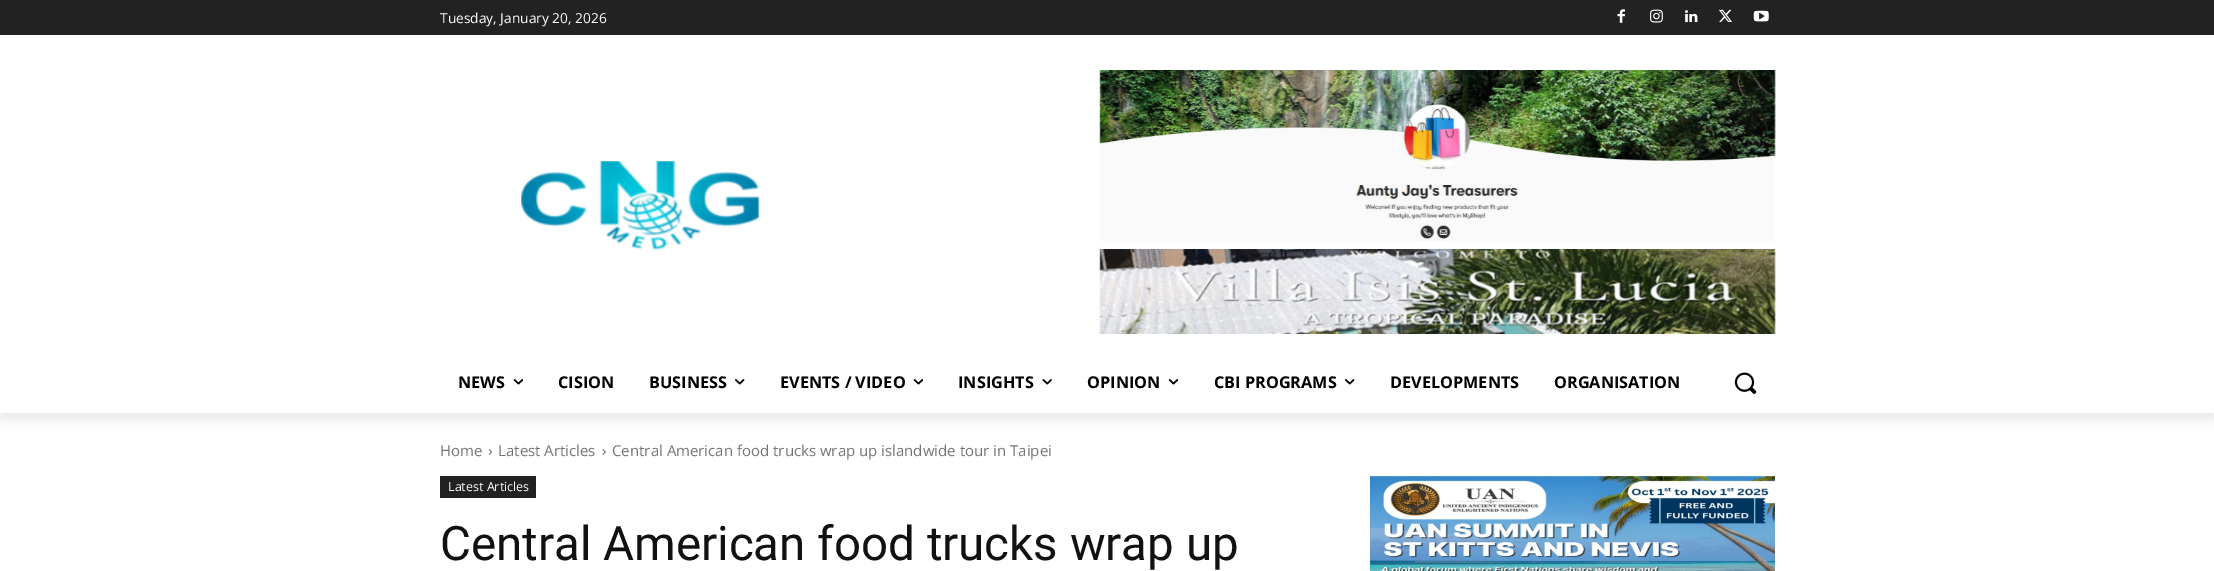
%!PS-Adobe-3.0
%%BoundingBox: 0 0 2214 571
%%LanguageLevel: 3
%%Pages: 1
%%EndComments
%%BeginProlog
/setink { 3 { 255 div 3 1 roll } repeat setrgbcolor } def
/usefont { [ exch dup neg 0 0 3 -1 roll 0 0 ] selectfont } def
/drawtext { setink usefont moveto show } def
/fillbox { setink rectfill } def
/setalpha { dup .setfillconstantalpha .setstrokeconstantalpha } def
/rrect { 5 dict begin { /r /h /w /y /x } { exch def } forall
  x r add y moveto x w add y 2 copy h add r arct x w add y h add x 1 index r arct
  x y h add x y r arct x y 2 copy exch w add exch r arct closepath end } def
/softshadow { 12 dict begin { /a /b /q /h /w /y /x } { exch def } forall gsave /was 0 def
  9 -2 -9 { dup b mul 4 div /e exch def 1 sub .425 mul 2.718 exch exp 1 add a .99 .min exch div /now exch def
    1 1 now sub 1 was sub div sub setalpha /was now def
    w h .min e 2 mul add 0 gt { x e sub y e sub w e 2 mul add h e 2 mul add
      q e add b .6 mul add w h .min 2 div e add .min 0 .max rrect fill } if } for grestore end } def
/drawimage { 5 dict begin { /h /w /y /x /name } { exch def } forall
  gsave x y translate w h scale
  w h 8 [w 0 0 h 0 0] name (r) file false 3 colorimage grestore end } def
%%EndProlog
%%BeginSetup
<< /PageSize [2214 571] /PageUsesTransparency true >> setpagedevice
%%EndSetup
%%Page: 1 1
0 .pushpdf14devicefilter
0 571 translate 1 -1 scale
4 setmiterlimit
0 0 2214 571 255 255 255 fillbox
0 0 2214 35 34 34 34 fillbox
(assets/img1.rgb) 1617 9 8 14 drawimage
(assets/img2.rgb) 1650 9 13 14 drawimage
(assets/img3.rgb) 1685 10 13 13 drawimage
(assets/img4.rgb) 1718 9 15 13 drawimage
(assets/img5.rgb) 1753 10 16 12 drawimage
(assets/img6.rgb) 521 161 239 89 drawimage
(assets/img7.rgb) 1099 70 677 171 drawimage
(assets/img8.rgb) 1099 249 677 85 drawimage
gsave
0 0 moveto 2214 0 lineto 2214 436 lineto 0 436 lineto closepath 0 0 moveto 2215 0 lineto 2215 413 lineto 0 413 lineto closepath eoclip newpath
0 0 0 setink
0 8 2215 412 0 5 0.08 softshadow
grestore
(Tuesday, January 20, 2026) 440 23 /OpenSans-Regular 13.75 255 255 255 drawtext
(NEWS) 458 388 /OpenSans-Bold 16.25 0 0 0 drawtext
(assets/img9.rgb) 513 379 11 6 drawimage
(CISION) 558 388 /OpenSans-Bold 16.25 0 0 0 drawtext
(BUSINESS) 649 388 /OpenSans-Bold 16.25 0 0 0 drawtext
(assets/img10.rgb) 735 379 10 6 drawimage
(EVENTS / VIDEO) 780 388 /OpenSans-Bold 16.25 0 0 0 drawtext
(assets/img9.rgb) 913 379 11 6 drawimage
(INSIGHTS) 958 388 /OpenSans-Bold 16.25 0 0 0 drawtext
(assets/img11.rgb) 1042 379 10 6 drawimage
(OPINION) 1087 388 /OpenSans-Bold 16.25 0 0 0 drawtext
(assets/img9.rgb) 1168 379 11 6 drawimage
(CBI PROGRAMS) 1214 388 /OpenSans-Bold 16.25 0 0 0 drawtext
(assets/img10.rgb) 1345 379 10 6 drawimage
(DEVELOPMENTS) 1390 388 /OpenSans-Bold 16.25 0 0 0 drawtext
(ORGANISATION) 1554 388 /OpenSans-Bold 16.25 0 0 0 drawtext
(assets/img12.rgb) 1734 372 23 22 drawimage
(Home) 440 456 /OpenSans-Regular 15 116 116 116 drawtext
(assets/img13.rgb) 488 449 5 6 drawimage
(Latest Articles) 498 456 /OpenSans-Regular 15 116 116 116 drawtext
(assets/img14.rgb) 602 449 4 6 drawimage
(Central American food trucks wrap up islandwide tour in Taipei) 612 456 /OpenSans-Regular 15 116 116 116 drawtext
440 476 96 22 34 34 34 fillbox
(Latest Articles) 448 491 /OpenSans-Regular 12.5 255 255 255 drawtext
(Central American food trucks wrap up) 440 560 /Roboto-Regular 47.5 17 17 17 drawtext
(assets/img15.rgb) 1370 476 405 95 drawimage
.poppdf14devicefilter showpage
%%EOF
